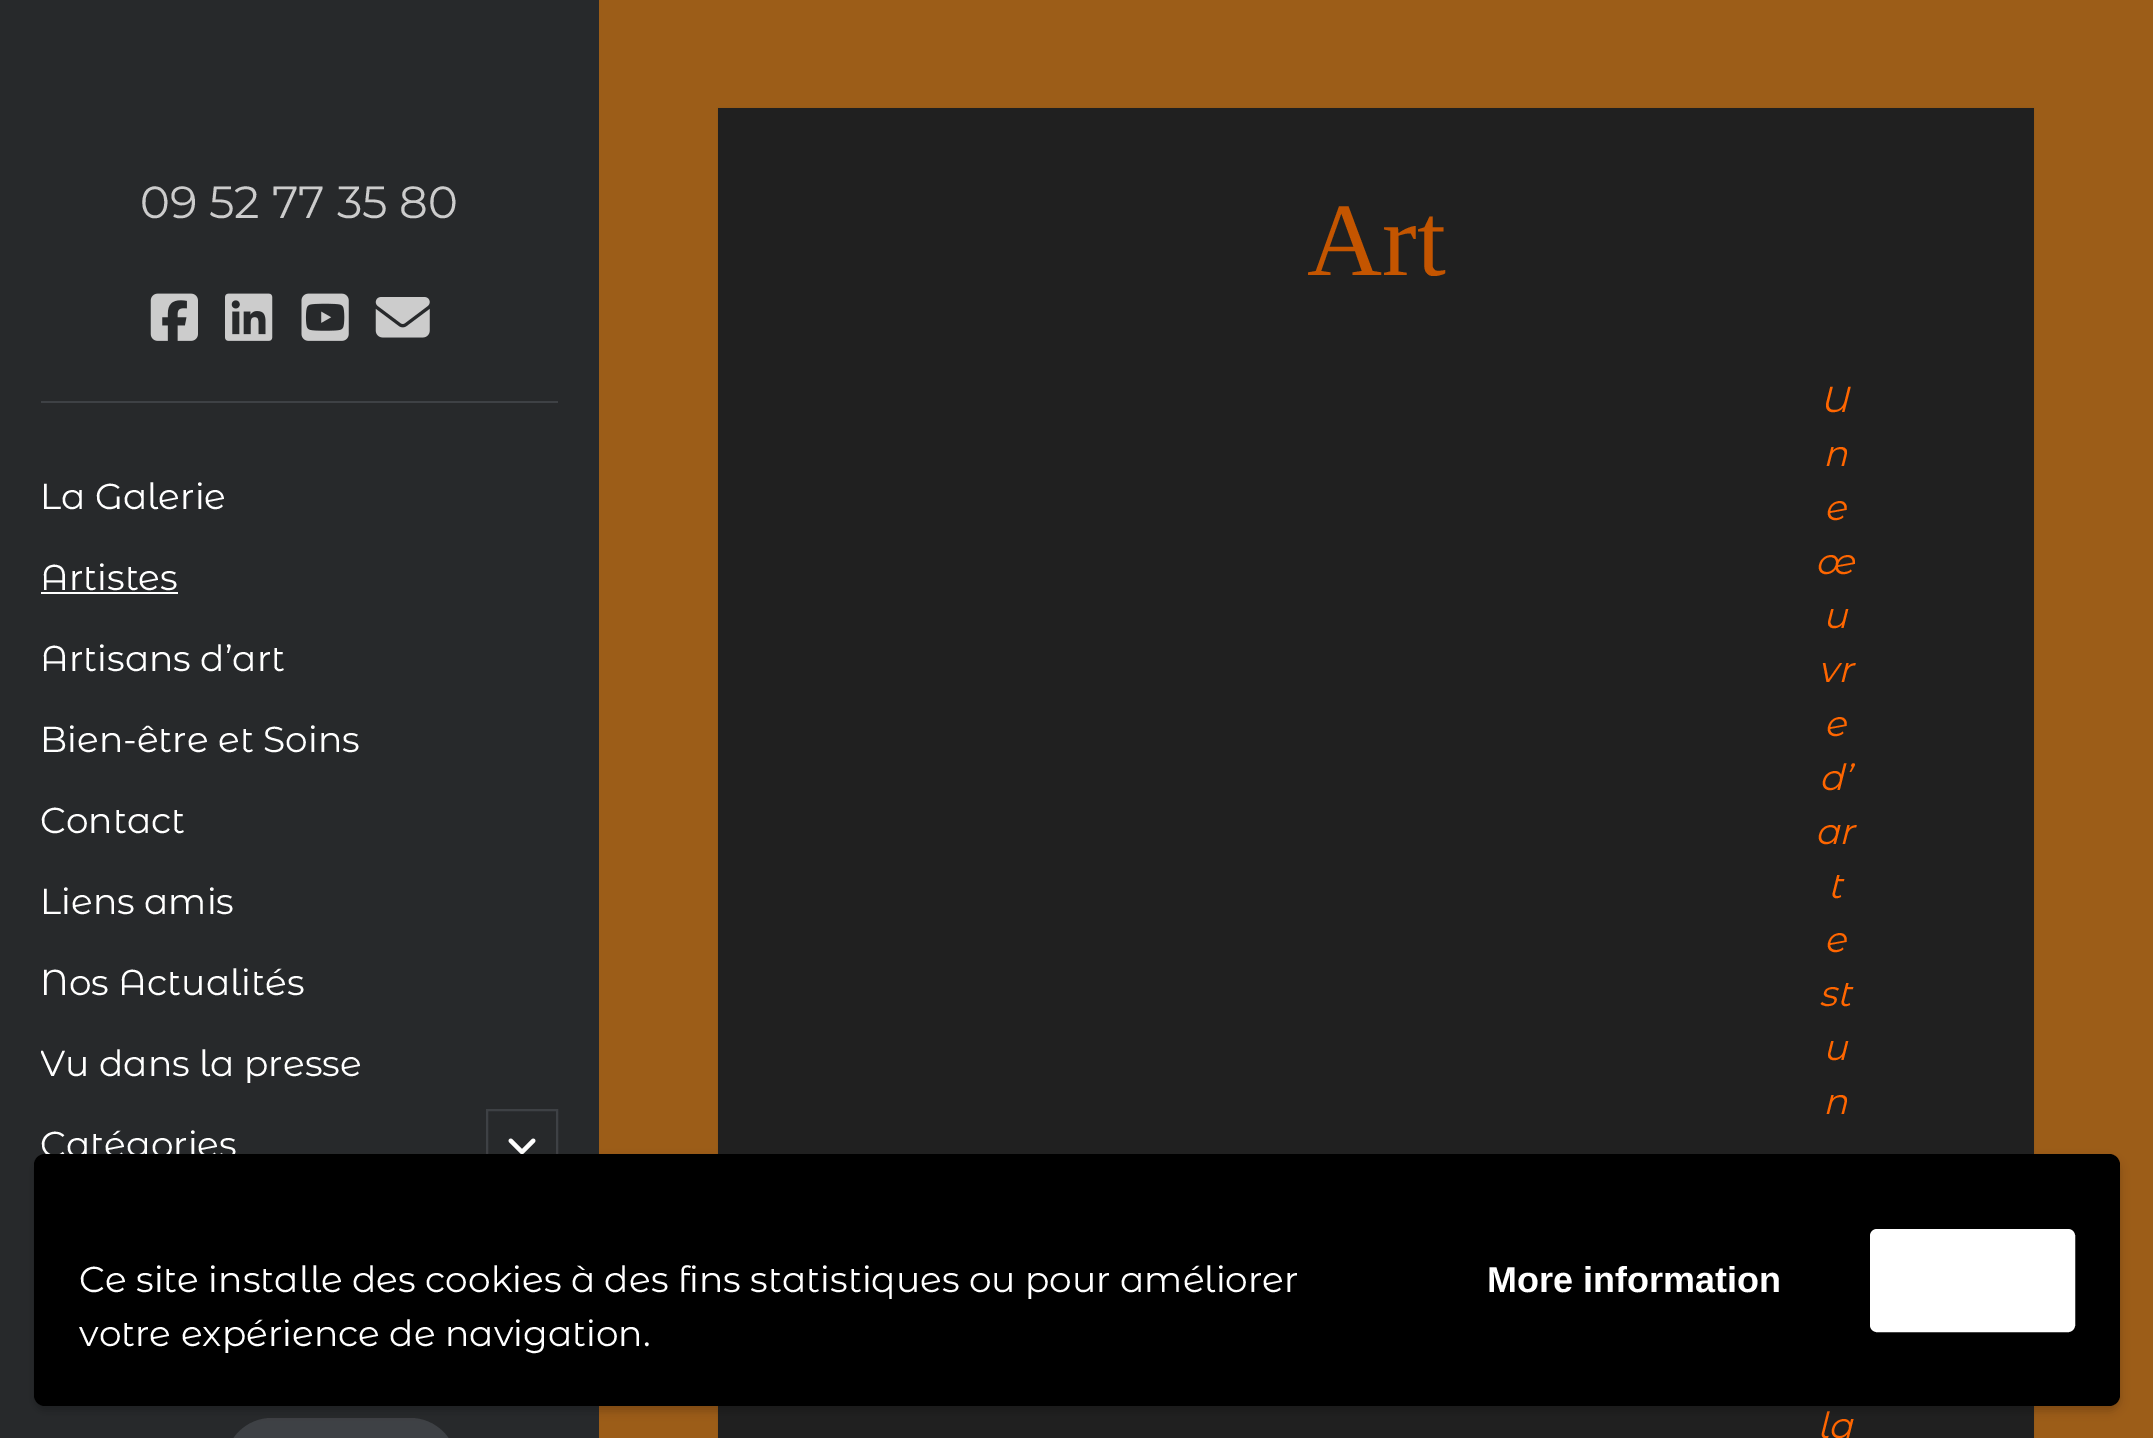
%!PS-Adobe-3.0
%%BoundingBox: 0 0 2153 1438
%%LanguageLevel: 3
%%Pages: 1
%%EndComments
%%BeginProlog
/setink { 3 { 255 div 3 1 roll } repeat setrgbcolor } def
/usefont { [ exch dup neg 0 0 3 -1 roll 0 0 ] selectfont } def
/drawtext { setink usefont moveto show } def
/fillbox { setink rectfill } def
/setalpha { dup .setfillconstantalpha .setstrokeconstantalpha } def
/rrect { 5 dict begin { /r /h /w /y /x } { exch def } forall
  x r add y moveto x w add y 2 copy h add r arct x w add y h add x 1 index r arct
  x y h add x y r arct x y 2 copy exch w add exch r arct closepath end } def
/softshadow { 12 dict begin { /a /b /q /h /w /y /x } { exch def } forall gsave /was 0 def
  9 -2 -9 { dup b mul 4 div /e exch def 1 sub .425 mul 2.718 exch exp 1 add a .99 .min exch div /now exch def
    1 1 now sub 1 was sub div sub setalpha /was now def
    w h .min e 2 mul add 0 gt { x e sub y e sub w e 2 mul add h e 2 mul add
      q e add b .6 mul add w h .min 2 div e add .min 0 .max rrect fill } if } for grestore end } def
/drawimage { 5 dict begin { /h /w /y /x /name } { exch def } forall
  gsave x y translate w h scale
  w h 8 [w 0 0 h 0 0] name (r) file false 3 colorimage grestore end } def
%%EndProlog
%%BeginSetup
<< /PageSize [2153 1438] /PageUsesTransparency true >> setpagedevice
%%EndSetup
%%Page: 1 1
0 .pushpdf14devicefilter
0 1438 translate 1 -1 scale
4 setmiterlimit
0 0 2153 1438 39 41 43 fillbox
(09 52 77 35 80) 140 218 /MontserratAlternates-Regular 45 204 204 204 drawtext
(assets/img1.rgb) 150 293 48 48 drawimage
(assets/img2.rgb) 225 293 48 48 drawimage
(assets/img3.rgb) 301 293 48 48 drawimage
(assets/img4.rgb) 375 297 55 41 drawimage
41 401 517 2 62 65 69 fillbox
(La Galerie) 40 509 /MontserratAlternates-Regular 36 255 255 255 drawtext
(Artistes) 40 590 /MontserratAlternates-Regular 36 255 255 255 drawtext
41 592 137 2 255 255 255 fillbox
(Artisans d’art) 40 671 /MontserratAlternates-Regular 36 255 255 255 drawtext
(Bien-être et Soins) 40 752 /MontserratAlternates-Regular 36 255 255 255 drawtext
(Contact) 40 833 /MontserratAlternates-Regular 36 255 255 255 drawtext
(Liens amis) 40 914 /MontserratAlternates-Regular 36 255 255 255 drawtext
(Nos Actualités) 40 995 /MontserratAlternates-Regular 36 255 255 255 drawtext
gsave
41 401 517 825 rectclip
(Vu dans la presse) 40 1076 /MontserratAlternates-Regular 36 255 255 255 drawtext
grestore
(Catégories) 40 1157 /MontserratAlternates-Regular 36 255 255 255 drawtext
62 65 69 setink
2 setlinewidth
487 1110 70 70 rectstroke
(assets/img5.rgb) 508 1138 28 16 drawimage
225 1418 232 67 47 rrect fill
599 0 1554 1438 156 93 24 fillbox
39 43 47 setink
718 108 1316 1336 0 2 0.1 softshadow
718 108 1316 1330 32 32 32 fillbox
(Art) 1307 275 /LiberationSerif-Regular 104 196 85 0 drawtext
(U) 1820 412 /MontserratAlternates-Italic 36 255 102 0 drawtext
(n) 1823 466 /MontserratAlternates-Italic 36 255 102 0 drawtext
(e) 1824 520 /MontserratAlternates-Italic 36 255 102 0 drawtext
(œ) 1815 574 /MontserratAlternates-Italic 36 255 102 0 drawtext
(u) 1823 628 /MontserratAlternates-Italic 36 255 102 0 drawtext
(vr) 1818 682 /MontserratAlternates-Italic 36 255 102 0 drawtext
(e) 1824 736 /MontserratAlternates-Italic 36 255 102 0 drawtext
(d’) 1819 790 /MontserratAlternates-Italic 36 255 102 0 drawtext
(ar) 1815 844 /MontserratAlternates-Italic 36 255 102 0 drawtext
(t) 1828 898 /MontserratAlternates-Italic 36 255 102 0 drawtext
(e) 1824 952 /MontserratAlternates-Italic 36 255 102 0 drawtext
(st) 1819 1006 /MontserratAlternates-Italic 36 255 102 0 drawtext
(u) 1823 1060 /MontserratAlternates-Italic 36 255 102 0 drawtext
(n) 1823 1114 /MontserratAlternates-Italic 36 255 102 0 drawtext
(la) 1817 1438 /MontserratAlternates-Italic 36 255 102 0 drawtext
0 0 0 setink
34 1159 2086 252 11 4.5 0.2 softshadow
34 1154 2086 252 11 rrect fill
(Ce site installe des cookies à des fins statistiques ou pour améliorer) 79 1292 /MontserratAlternates-Regular 36 255 255 255 drawtext
(votre expérience de navigation.) 79 1346 /MontserratAlternates-Regular 36 255 255 255 drawtext
(More information) 1487 1292 /LiberationSans-Bold 36 255 255 255 drawtext
1871 1230 203 101 6 rrect gsave fill grestore
stroke
.poppdf14devicefilter showpage
%%EOF
